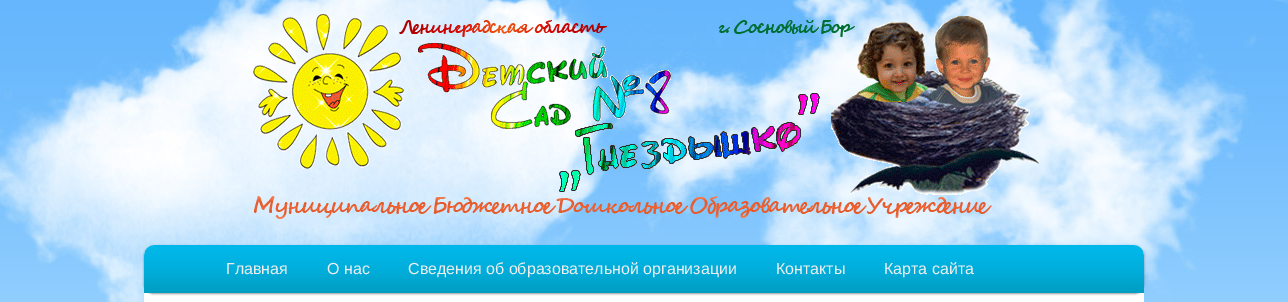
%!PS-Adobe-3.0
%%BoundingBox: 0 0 1288 302
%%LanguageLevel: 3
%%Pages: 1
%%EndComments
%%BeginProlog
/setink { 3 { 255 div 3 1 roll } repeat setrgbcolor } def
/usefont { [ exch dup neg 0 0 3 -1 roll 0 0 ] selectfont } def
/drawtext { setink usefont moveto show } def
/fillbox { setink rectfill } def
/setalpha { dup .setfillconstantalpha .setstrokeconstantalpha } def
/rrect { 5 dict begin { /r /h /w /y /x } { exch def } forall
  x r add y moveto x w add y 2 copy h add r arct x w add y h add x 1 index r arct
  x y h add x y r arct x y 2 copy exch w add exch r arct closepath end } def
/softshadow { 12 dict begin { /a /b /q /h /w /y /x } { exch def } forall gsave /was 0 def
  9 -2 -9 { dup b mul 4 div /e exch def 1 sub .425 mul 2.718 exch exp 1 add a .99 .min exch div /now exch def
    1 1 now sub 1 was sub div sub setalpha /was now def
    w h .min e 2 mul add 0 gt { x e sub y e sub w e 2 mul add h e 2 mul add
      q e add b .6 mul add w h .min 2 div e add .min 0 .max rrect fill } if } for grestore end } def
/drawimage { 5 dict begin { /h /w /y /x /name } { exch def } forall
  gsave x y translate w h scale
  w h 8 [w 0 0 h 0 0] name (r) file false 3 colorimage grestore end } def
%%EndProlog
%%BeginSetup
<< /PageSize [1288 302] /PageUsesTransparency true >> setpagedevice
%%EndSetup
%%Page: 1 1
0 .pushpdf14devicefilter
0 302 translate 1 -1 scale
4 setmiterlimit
0 0 1288 302 255 255 255 fillbox
(assets/img1.rgb) 0 0 1288 302 drawimage
(assets/img2.rgb) 253 14 787 205 drawimage
154 245 moveto 1134 245 lineto 1139.5 245 1144 249.5 1144 255 curveto 1144 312 lineto 144 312 lineto 144 255 lineto 144 249.5 148.5 245 154 245 curveto closepath fill
0 0 0 setink
144 246 1000 48 10 1 0.4 softshadow
(assets/img3.rgb) 144 245 1000 48 drawimage
(Главная) 226 274 /LiberationSans-Regular 16 238 238 238 drawtext
(О нас) 327 274 /LiberationSans-Regular 16 238 238 238 drawtext
(Сведения об образовательной организации) 408 274 /LiberationSans-Regular 16 238 238 238 drawtext
(Контакты) 776 274 /LiberationSans-Regular 16 238 238 238 drawtext
(Карта сайта) 884 274 /LiberationSans-Regular 16 238 238 238 drawtext
.poppdf14devicefilter showpage
%%EOF
